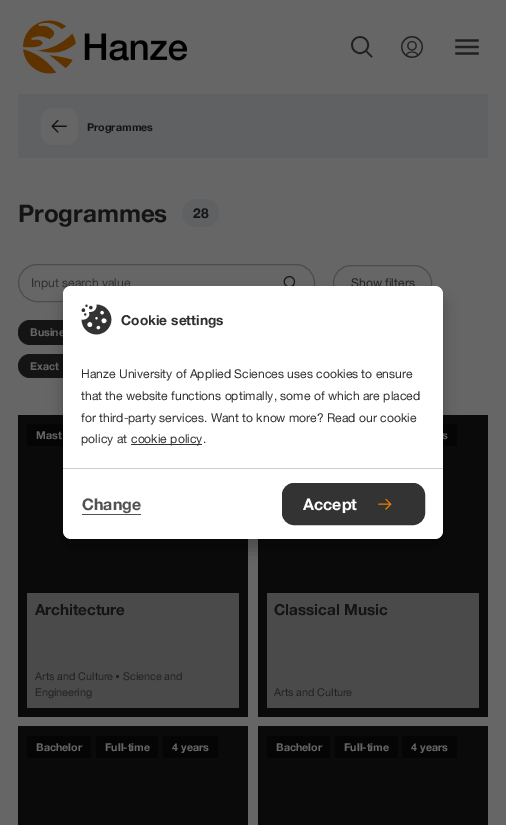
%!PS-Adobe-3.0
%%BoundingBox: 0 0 506 825
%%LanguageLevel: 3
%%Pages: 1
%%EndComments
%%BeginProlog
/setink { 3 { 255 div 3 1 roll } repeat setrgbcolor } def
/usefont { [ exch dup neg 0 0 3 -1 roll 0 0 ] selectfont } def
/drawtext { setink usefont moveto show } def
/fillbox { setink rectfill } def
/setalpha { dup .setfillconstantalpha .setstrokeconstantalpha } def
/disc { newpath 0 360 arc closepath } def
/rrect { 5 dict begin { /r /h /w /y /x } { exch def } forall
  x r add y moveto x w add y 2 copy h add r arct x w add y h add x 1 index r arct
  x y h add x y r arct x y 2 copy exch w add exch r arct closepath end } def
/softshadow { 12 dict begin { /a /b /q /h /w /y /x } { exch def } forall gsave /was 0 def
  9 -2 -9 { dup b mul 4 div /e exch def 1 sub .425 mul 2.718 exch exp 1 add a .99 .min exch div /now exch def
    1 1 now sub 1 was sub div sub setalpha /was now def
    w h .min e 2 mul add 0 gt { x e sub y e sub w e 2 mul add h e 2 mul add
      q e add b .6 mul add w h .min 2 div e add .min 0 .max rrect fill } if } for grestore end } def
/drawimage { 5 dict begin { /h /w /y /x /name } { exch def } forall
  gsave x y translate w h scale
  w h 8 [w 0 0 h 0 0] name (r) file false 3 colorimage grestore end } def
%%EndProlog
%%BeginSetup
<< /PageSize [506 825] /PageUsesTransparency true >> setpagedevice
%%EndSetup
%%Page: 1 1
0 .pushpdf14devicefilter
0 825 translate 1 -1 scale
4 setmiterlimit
0 0 506 825 102 102 102 fillbox
(assets/img1.rgb) 23 20 164 54 drawimage
(assets/img2.rgb) 351 36 22 22 drawimage
(assets/img3.rgb) 401 36 22 22 drawimage
(assets/img4.rgb) 455 39 24 16 drawimage
18 94 470 64 96 97 99 fillbox
102 102 102 setink
41 108 37 37 12 rrect fill
(assets/img5.rgb) 51 119 16 14 drawimage
(Programmes) 87 131 /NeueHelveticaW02-Bold 10.75 20 20 20 drawtext
(Programmes) 18 222 /NeueHelveticaW02-Bold 24.25 20 20 20 drawtext
96 97 99 setink
182 199 37 28 14 rrect fill
(28) 193 218 /NeueHelveticaW02-Bold 13.75 20 20 20 drawtext
76 76 76 setink
18.5 264.5 296 37 18.5 rrect stroke
(Input search value) 31 287 /NeueHelveticaW02-Regular 12.15 47 47 47 drawtext
(assets/img6.rgb) 283 276 13 10 drawimage
76 76 76 setink
333.5 265.5 98 35 17.5 rrect stroke
(Show filters) 351 287 /NeueHelveticaW02-Regular 12.15 32 32 32 drawtext
20 20 20 setink
18 320 168 25 12 rrect fill
(Busine) 30 336 /NeueHelveticaW02-Bold 10.75 102 102 102 drawtext
20 20 20 setink
18 354 202 24 12 rrect fill
(Exact) 30 370 /NeueHelveticaW02-Bold 10.75 102 102 102 drawtext
18 415 230 302 10 10 10 fillbox
27 424 36 22 5 5 5 fillbox
(Mast) 36 439 /NeueHelveticaW02-Bold 10.75 102 102 102 drawtext
27 593 212 115 74 74 74 fillbox
(Architecture) 35 615 /NeueHelveticaW02-Bold 15.25 20 20 20 drawtext
(Arts and Culture) 35 680 /NeueHelveticaW02-Regular 10.75 32 32 32 drawtext
117.5 676.5 1.5 disc fill
(Science and) 123 680 /NeueHelveticaW02-Regular 10.75 32 32 32 drawtext
(Engineering) 35 696 /NeueHelveticaW02-Regular 10.75 32 32 32 drawtext
258 415 230 302 10 10 10 fillbox
443 424 14 22 5 5 5 fillbox
(s) 442 439 /NeueHelveticaW02-Bold 10.75 102 102 102 drawtext
267 593 212 115 74 74 74 fillbox
(Classical Music) 274 615 /NeueHelveticaW02-Bold 15.25 20 20 20 drawtext
(Arts and Culture) 274 696 /NeueHelveticaW02-Regular 10.75 32 32 32 drawtext
18 726 230 99 10 10 10 fillbox
27 736 64 22 5 5 5 fillbox
(Bachelor) 36 751 /NeueHelveticaW02-Bold 10.75 102 102 102 drawtext
96 736 62 22 5 5 5 fillbox
(Full-time) 105 751 /NeueHelveticaW02-Bold 10.75 102 102 102 drawtext
163 736 55 22 5 5 5 fillbox
(4 years) 172 751 /NeueHelveticaW02-Bold 10.75 102 102 102 drawtext
258 726 230 99 10 10 10 fillbox
267 736 63 22 5 5 5 fillbox
(Bachelor) 276 751 /NeueHelveticaW02-Bold 10.75 102 102 102 drawtext
335 736 63 22 5 5 5 fillbox
(Full-time) 344 751 /NeueHelveticaW02-Bold 10.75 102 102 102 drawtext
402 736 55 22 5 5 5 fillbox
(4 years) 411 751 /NeueHelveticaW02-Bold 10.75 102 102 102 drawtext
0 0 0 setink
63 297 380 253 8 7.5 0.25 softshadow
255 255 255 setink
63 286 380 253 8 rrect fill
(assets/img7.rgb) 81 304 31 31 drawimage
(Cookie settings) 121 325 /NeueHelveticaW02-Bold 13.75 47 47 47 drawtext
(Hanze University of Applied Sciences uses cookies to ensure) 81 378 /NeueHelveticaW02-Regular 12.15 47 47 47 drawtext
(that the website functions optimally, some of which are placed) 81 400 /NeueHelveticaW02-Regular 12.15 47 47 47 drawtext
(for third-party services. Want to know more? Read our cookie) 81 422 /NeueHelveticaW02-Regular 12.15 47 47 47 drawtext
(policy at) 81 443 /NeueHelveticaW02-Regular 12.15 47 47 47 drawtext
131 444 71 1 51 51 51 fillbox
(cookie policy.) 131 443 /NeueHelveticaW02-Regular 12.15 47 47 47 drawtext
63 468 380 1 204 204 204 fillbox
(Change) 82 510 /NeueHelveticaW02-Bold 16 81 81 81 drawtext
82 514 59 1 81 81 81 fillbox
51 51 51 setink
282.5 483.5 142 41 11.5 rrect gsave fill grestore
stroke
(Accept) 303 510 /NeueHelveticaW02-Bold 16 255 255 255 drawtext
(assets/img8.rgb) 378 498 14 12 drawimage
.poppdf14devicefilter showpage
%%EOF
